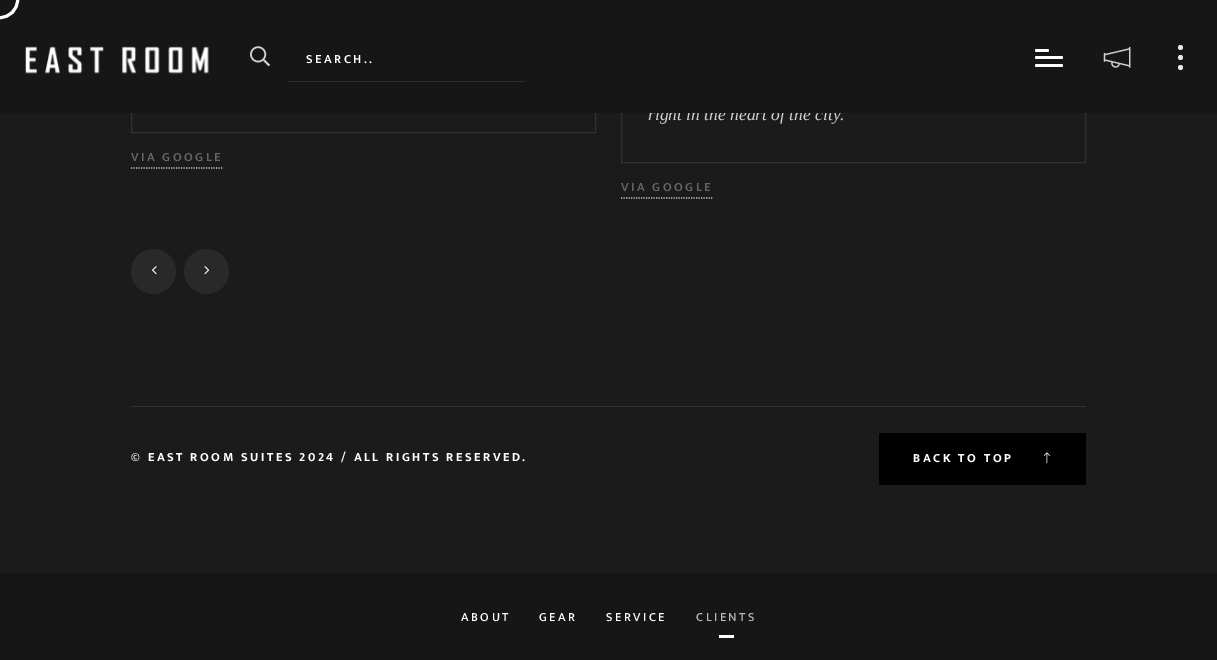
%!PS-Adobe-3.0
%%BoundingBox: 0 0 1217 660
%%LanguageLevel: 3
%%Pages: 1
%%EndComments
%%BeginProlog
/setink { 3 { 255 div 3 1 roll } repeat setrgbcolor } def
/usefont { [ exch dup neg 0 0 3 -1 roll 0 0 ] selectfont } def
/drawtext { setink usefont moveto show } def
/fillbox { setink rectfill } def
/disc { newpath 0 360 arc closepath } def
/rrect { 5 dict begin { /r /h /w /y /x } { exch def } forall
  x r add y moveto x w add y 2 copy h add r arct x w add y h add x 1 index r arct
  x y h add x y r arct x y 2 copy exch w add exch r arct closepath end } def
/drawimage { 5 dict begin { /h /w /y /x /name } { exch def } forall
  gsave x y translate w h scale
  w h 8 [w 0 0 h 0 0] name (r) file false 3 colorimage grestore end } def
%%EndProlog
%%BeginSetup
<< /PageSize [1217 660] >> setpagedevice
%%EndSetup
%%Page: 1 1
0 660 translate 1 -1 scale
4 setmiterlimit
0 0 1217 660 27 27 27 fillbox
50 50 50 setink
131.5 -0.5 464 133 rectstroke
621.5 -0.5 464 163 rectstroke
(right in the heart of the city.) 648 120 /LiberationSerif-Italic 17.5 209 209 209 drawtext
0 0 1217 113 22 22 22 fillbox
255 255 255 setink
3 setlinewidth
0 0 17.5 disc stroke
(assets/img1.rgb) 25 46 184 28 drawimage
(assets/img2.rgb) 250 46 20 21 drawimage
288 81 237 1 45 45 45 fillbox
/EkMukta-SemiBold 12.5 usefont
255 255 255 setink
306 63 moveto 2.5 0 (SEARCH..) ashow
1035 49 14 3 1.5 rrect fill
1035 56 28 3 1.5 rrect fill
1035 64 28 3 1.5 rrect fill
(assets/img3.rgb) 1103 46 28 22 drawimage
232 232 232 setink
1180.5 47.5 2.5 disc fill
1180.5 57.5 2.5 disc fill
1180.5 67.5 2.5 disc fill
204 204 204 setink
1.2 setlinewidth
[1.25 1.25] 0 setdash
131 168 moveto 222.5 168 lineto stroke
102 102 102 setink
131 161 moveto 2.5 0 (VIA GOOGLE) ashow
204 204 204 setink
621 198 moveto 712.5 198 lineto stroke
102 102 102 setink
621 191 moveto 2.5 0 (VIA GOOGLE) ashow
41 41 41 setink
153.5 271.5 22.5 disc fill
(assets/img4.rgb) 152 266 5 9 drawimage
206.5 271.5 22.5 disc fill
(assets/img5.rgb) 204 266 6 9 drawimage
131 406 955 1 50 50 50 fillbox
/EkMukta-Bold 12.5 usefont
255 255 255 setink
131 461 moveto 2.5 0 (© EAST ROOM SUITES 2024 / ALL RIGHTS RESERVED.) ashow
879 433 207 52 0 0 0 fillbox
255 255 255 setink
913 462 moveto 2.5 0 (BACK TO TOP) ashow
(assets/img6.rgb) 1043 452 7 12 drawimage
0 573 1217 87 22 22 22 fillbox
/EkMukta-Medium 12.5 usefont
255 255 255 setink
461 621 moveto 2.5 0 (ABOUT) ashow
539 621 moveto 2.5 0 (GEAR) ashow
606 621 moveto 2.5 0 (SERVICE) ashow
185 185 185 setink
696 621 moveto 2.5 0 (CLIENTS) ashow
719 635 15 3 255 255 255 fillbox
showpage
%%EOF
